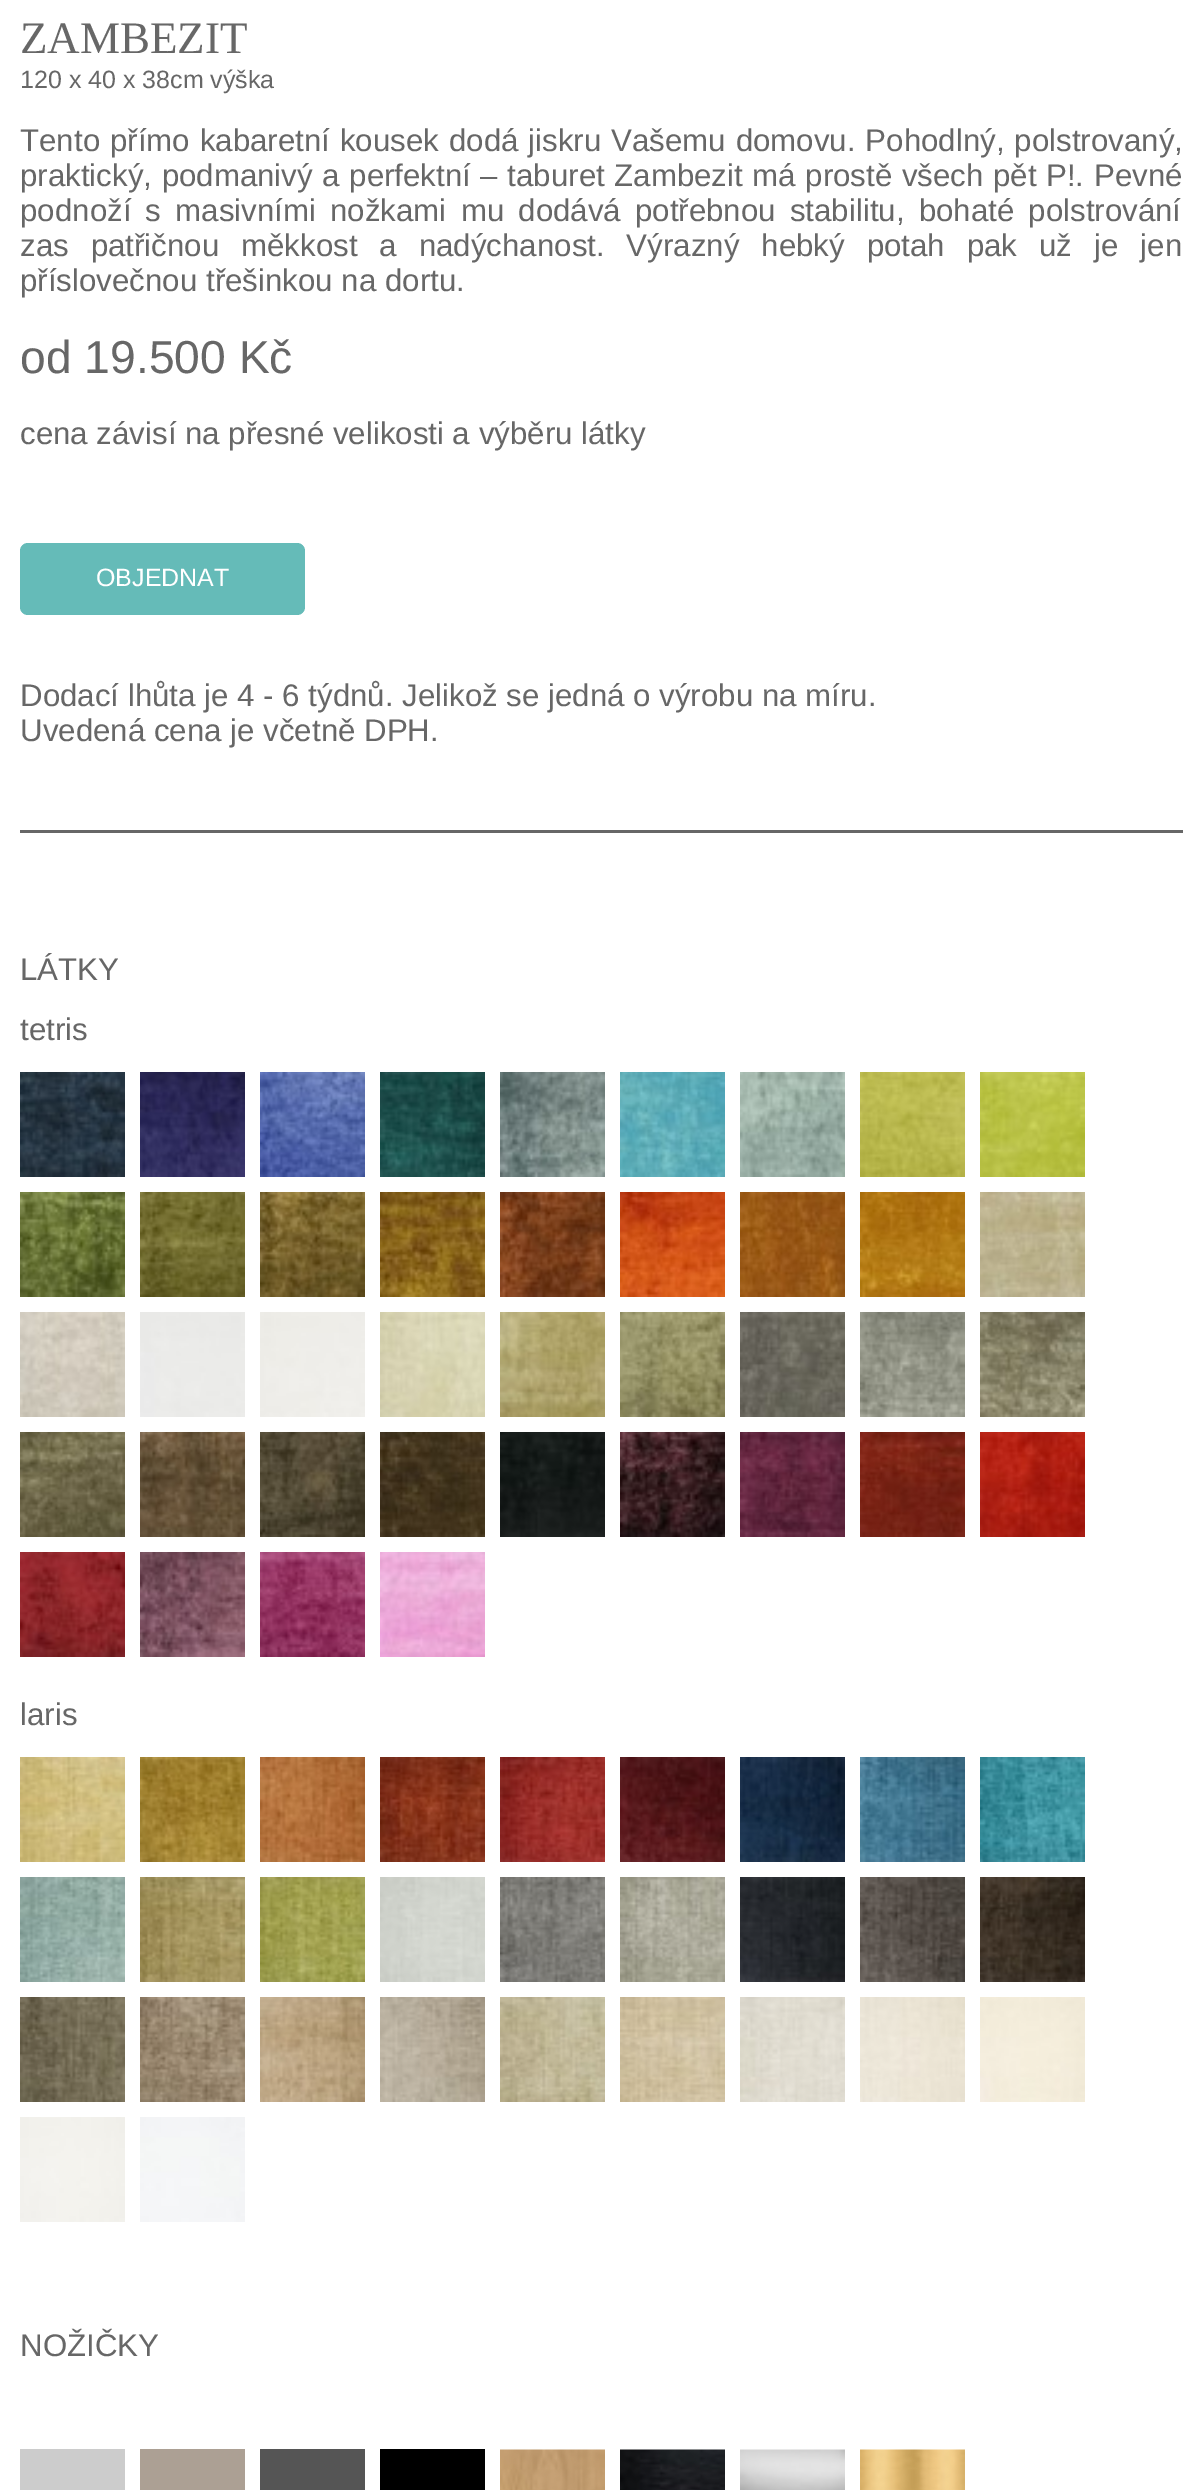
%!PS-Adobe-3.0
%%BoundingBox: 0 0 1202 2490
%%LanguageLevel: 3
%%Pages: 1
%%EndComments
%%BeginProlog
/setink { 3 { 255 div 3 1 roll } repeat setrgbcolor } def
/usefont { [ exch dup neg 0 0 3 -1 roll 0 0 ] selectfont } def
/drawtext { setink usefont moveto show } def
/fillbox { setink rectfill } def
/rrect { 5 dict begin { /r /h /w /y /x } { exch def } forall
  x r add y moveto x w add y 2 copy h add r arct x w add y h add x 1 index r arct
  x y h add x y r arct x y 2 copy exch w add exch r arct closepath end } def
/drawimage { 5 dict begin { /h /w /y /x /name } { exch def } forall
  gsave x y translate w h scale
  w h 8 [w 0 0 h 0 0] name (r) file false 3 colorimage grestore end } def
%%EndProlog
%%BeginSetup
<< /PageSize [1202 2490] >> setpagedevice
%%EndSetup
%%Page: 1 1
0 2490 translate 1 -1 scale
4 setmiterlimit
0 0 1202 2490 255 255 255 fillbox
(ZAMBEZIT) 20 53 /LiberationSerif-Regular 45 103 103 103 drawtext
(120 x 40 x 38cm výška) 20 88 /LiberationSans-Regular 25 103 103 103 drawtext
/LiberationSans-Regular 31.25 usefont
20 151 moveto 1.25 0 32 (Tento přímo kabaretní kousek dodá jiskru Vašemu domovu. Pohodlný, polstrovaný,) widthshow
20 186 moveto 0.9 0 32 (praktický, podmanivý a perfektní – taburet Zambezit má prostě všech pět P!. Pevné) widthshow
20 221 moveto 5.5 0 32 (podnoží s masivními nožkami mu dodává potřebnou stabilitu, bohaté polstrování) widthshow
20 256 moveto 13.25 0 32 (zas patřičnou měkkost a nadýchanost. Výrazný hebký potah pak už je jen) widthshow
(příslovečnou třešinkou na dortu.) 20 291 /LiberationSans-Regular 31.25 103 103 103 drawtext
(od 19.500 Kč) 20 373 /LiberationSans-Regular 46.25 103 103 103 drawtext
(cena závisí na přesné velikosti a výběru látky) 20 444 /LiberationSans-Regular 31.25 103 103 103 drawtext
101 187 184 setink
20 543 285 72 8 rrect fill
(OBJEDNAT) 96 586 /LiberationSans-Regular 25 255 255 255 drawtext
(Dodací lhůta je 4 - 6 týdnů. Jelikož se jedná o výrobu na míru.) 20 706 /LiberationSans-Regular 31.25 103 103 103 drawtext
(Uvedená cena je včetně DPH.) 20 741 /LiberationSans-Regular 31.25 103 103 103 drawtext
20 830 1163 3 103 103 103 fillbox
(LÁTKY) 20 980 /LiberationSans-Regular 31.25 103 103 103 drawtext
(tetris) 20 1040 /LiberationSans-Regular 31.25 103 103 103 drawtext
(assets/img1.rgb) 20 1072 105 105 drawimage
(assets/img2.rgb) 140 1072 105 105 drawimage
(assets/img3.rgb) 260 1072 105 105 drawimage
(assets/img4.rgb) 380 1072 105 105 drawimage
(assets/img5.rgb) 500 1072 105 105 drawimage
(assets/img6.rgb) 620 1072 105 105 drawimage
(assets/img7.rgb) 740 1072 105 105 drawimage
(assets/img8.rgb) 860 1072 105 105 drawimage
(assets/img9.rgb) 980 1072 105 105 drawimage
(assets/img10.rgb) 20 1192 105 105 drawimage
(assets/img11.rgb) 140 1192 105 105 drawimage
(assets/img12.rgb) 260 1192 105 105 drawimage
(assets/img13.rgb) 380 1192 105 105 drawimage
(assets/img14.rgb) 500 1192 105 105 drawimage
(assets/img15.rgb) 620 1192 105 105 drawimage
(assets/img16.rgb) 740 1192 105 105 drawimage
(assets/img17.rgb) 860 1192 105 105 drawimage
(assets/img18.rgb) 980 1192 105 105 drawimage
(assets/img19.rgb) 20 1312 105 105 drawimage
(assets/img20.rgb) 140 1312 105 105 drawimage
(assets/img21.rgb) 260 1312 105 105 drawimage
(assets/img22.rgb) 380 1312 105 105 drawimage
(assets/img23.rgb) 500 1312 105 105 drawimage
(assets/img24.rgb) 620 1312 105 105 drawimage
(assets/img25.rgb) 740 1312 105 105 drawimage
(assets/img26.rgb) 860 1312 105 105 drawimage
(assets/img27.rgb) 980 1312 105 105 drawimage
(assets/img28.rgb) 20 1432 105 105 drawimage
(assets/img29.rgb) 140 1432 105 105 drawimage
(assets/img30.rgb) 260 1432 105 105 drawimage
(assets/img31.rgb) 380 1432 105 105 drawimage
(assets/img32.rgb) 500 1432 105 105 drawimage
(assets/img33.rgb) 620 1432 105 105 drawimage
(assets/img34.rgb) 740 1432 105 105 drawimage
(assets/img35.rgb) 860 1432 105 105 drawimage
(assets/img36.rgb) 980 1432 105 105 drawimage
(assets/img37.rgb) 20 1552 105 105 drawimage
(assets/img38.rgb) 140 1552 105 105 drawimage
(assets/img39.rgb) 260 1552 105 105 drawimage
(assets/img40.rgb) 380 1552 105 105 drawimage
(laris) 20 1725 /LiberationSans-Regular 31.25 103 103 103 drawtext
(assets/img41.rgb) 20 1757 105 105 drawimage
(assets/img42.rgb) 140 1757 105 105 drawimage
(assets/img43.rgb) 260 1757 105 105 drawimage
(assets/img44.rgb) 380 1757 105 105 drawimage
(assets/img45.rgb) 500 1757 105 105 drawimage
(assets/img46.rgb) 620 1757 105 105 drawimage
(assets/img47.rgb) 740 1757 105 105 drawimage
(assets/img48.rgb) 860 1757 105 105 drawimage
(assets/img49.rgb) 980 1757 105 105 drawimage
(assets/img50.rgb) 20 1877 105 105 drawimage
(assets/img51.rgb) 140 1877 105 105 drawimage
(assets/img52.rgb) 260 1877 105 105 drawimage
(assets/img53.rgb) 380 1877 105 105 drawimage
(assets/img54.rgb) 500 1877 105 105 drawimage
(assets/img55.rgb) 620 1877 105 105 drawimage
(assets/img56.rgb) 740 1877 105 105 drawimage
(assets/img57.rgb) 860 1877 105 105 drawimage
(assets/img58.rgb) 980 1877 105 105 drawimage
(assets/img59.rgb) 20 1997 105 105 drawimage
(assets/img60.rgb) 140 1997 105 105 drawimage
(assets/img61.rgb) 260 1997 105 105 drawimage
(assets/img62.rgb) 380 1997 105 105 drawimage
(assets/img63.rgb) 500 1997 105 105 drawimage
(assets/img64.rgb) 620 1997 105 105 drawimage
(assets/img65.rgb) 740 1997 105 105 drawimage
(assets/img66.rgb) 860 1997 105 105 drawimage
(assets/img67.rgb) 980 1997 105 105 drawimage
(assets/img68.rgb) 20 2117 105 105 drawimage
(assets/img69.rgb) 140 2117 105 105 drawimage
(NOŽIČKY) 20 2356 /LiberationSans-Regular 31.25 103 103 103 drawtext
20 2449 105 41 204 204 204 fillbox
140 2449 105 41 172 160 148 fillbox
260 2449 105 41 85 85 85 fillbox
380 2449 105 41 0 0 0 fillbox
(assets/img70.rgb) 500 2449 105 41 drawimage
(assets/img71.rgb) 620 2449 105 41 drawimage
(assets/img72.rgb) 740 2449 105 41 drawimage
(assets/img73.rgb) 860 2449 105 41 drawimage
showpage
%%EOF
